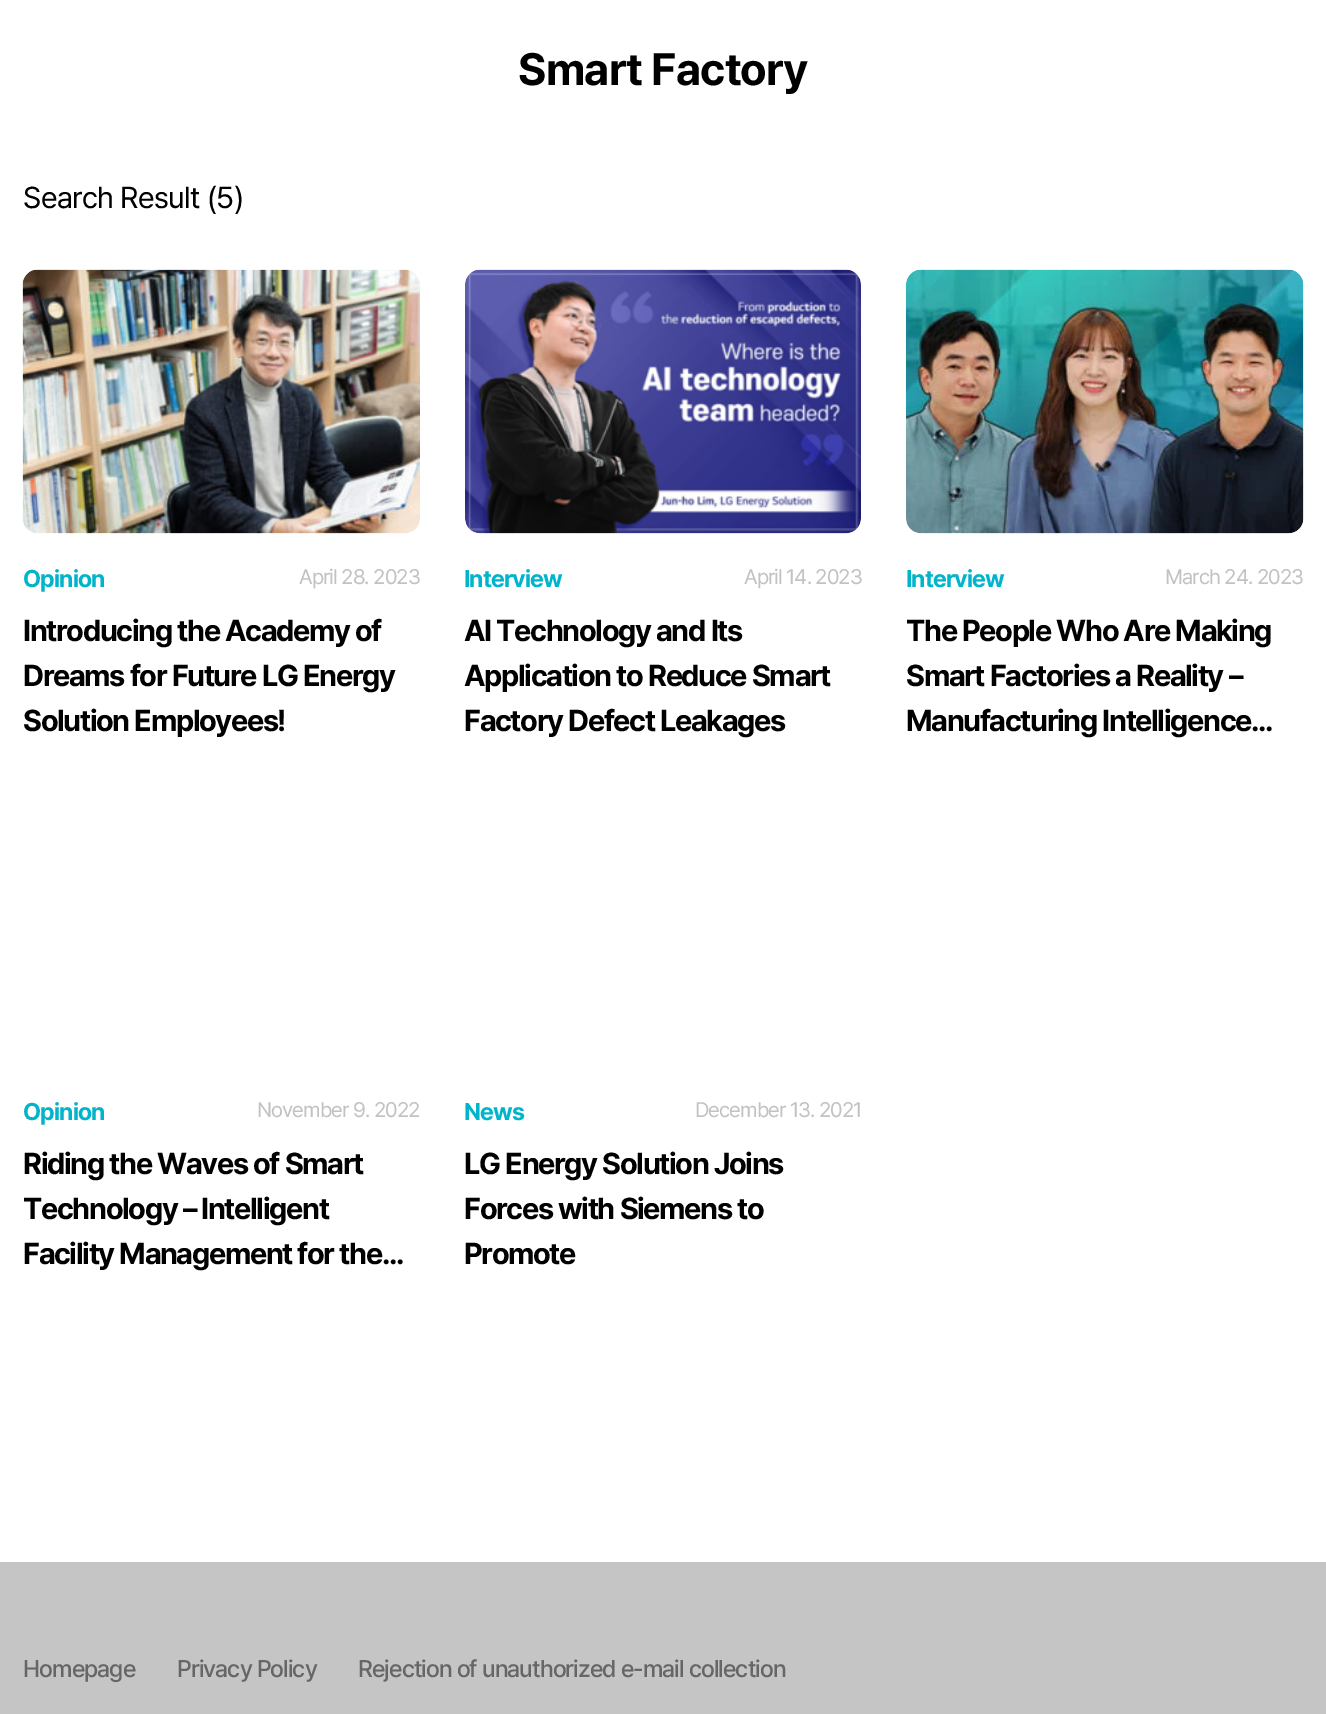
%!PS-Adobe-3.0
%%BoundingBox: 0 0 1326 1714
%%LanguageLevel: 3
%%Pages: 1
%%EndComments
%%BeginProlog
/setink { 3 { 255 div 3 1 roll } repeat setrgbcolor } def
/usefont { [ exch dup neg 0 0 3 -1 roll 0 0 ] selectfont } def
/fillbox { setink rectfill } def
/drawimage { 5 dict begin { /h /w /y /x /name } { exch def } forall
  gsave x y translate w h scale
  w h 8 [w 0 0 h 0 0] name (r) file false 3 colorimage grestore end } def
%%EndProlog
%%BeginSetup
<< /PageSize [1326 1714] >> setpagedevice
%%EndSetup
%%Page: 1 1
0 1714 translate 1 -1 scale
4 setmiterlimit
0 0 1326 1714 255 255 255 fillbox
/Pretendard-Bold 45 usefont
0 0 0 setink
518 85 moveto -0.75 0 (Smart Factory) ashow
/Pretendard-Regular 30 usefont
23 208 moveto -0.6 0 (Search Result \(5\)) ashow
(assets/img1.rgb) 22 269 398 265 drawimage
/Pretendard-Bold 24 usefont
0 180 203 setink
23 587 moveto -0.9 0 (Opinion) ashow
/Pretendard-Regular 21 usefont
194 194 194 setink
299 584 moveto -0.9 0 (April 28. 2023) ashow
/Pretendard-Bold 30 usefont
0 0 0 setink
23 641 moveto -1.35 0 (Introducing the Academy of) ashow
23 686 moveto -1.35 0 (Dreams for Future LG Energy) ashow
23 731 moveto -1.35 0 (Solution Employees!) ashow
(assets/img2.rgb) 465 269 396 265 drawimage
/Pretendard-Bold 24 usefont
0 180 203 setink
464 587 moveto -0.9 0 (Interview) ashow
/Pretendard-Regular 21 usefont
194 194 194 setink
744 584 moveto -0.9 0 (April 14. 2023) ashow
/Pretendard-Bold 30 usefont
0 0 0 setink
464 641 moveto -1.35 0 (AI Technology and Its) ashow
464 686 moveto -1.35 0 (Application to Reduce Smart) ashow
464 731 moveto -1.35 0 (Factory Defect Leakages) ashow
(assets/img3.rgb) 906 269 398 265 drawimage
/Pretendard-Bold 24 usefont
0 180 203 setink
906 587 moveto -0.9 0 (Interview) ashow
/Pretendard-Regular 21 usefont
194 194 194 setink
1165 584 moveto -0.9 0 (March 24. 2023) ashow
/Pretendard-Bold 30 usefont
0 0 0 setink
906 641 moveto -1.35 0 (The People Who Are Making) ashow
906 686 moveto -1.35 0 (Smart Factories a Reality –) ashow
906 731 moveto -1.35 0 (Manufacturing Intelligence...) ashow
/Pretendard-Bold 24 usefont
0 180 203 setink
23 1120 moveto -0.9 0 (Opinion) ashow
/Pretendard-Regular 21 usefont
194 194 194 setink
257 1117 moveto -0.9 0 (November 9. 2022) ashow
/Pretendard-Bold 30 usefont
0 0 0 setink
23 1174 moveto -1.35 0 (Riding the Waves of Smart) ashow
23 1219 moveto -1.35 0 (Technology – Intelligent) ashow
23 1264 moveto -1.35 0 (Facility Management for the...) ashow
/Pretendard-Bold 24 usefont
0 180 203 setink
464 1120 moveto -0.9 0 (News) ashow
/Pretendard-Regular 21 usefont
194 194 194 setink
695 1117 moveto -0.9 0 (December 13. 2021) ashow
/Pretendard-Bold 30 usefont
0 0 0 setink
464 1174 moveto -1.35 0 (LG Energy Solution Joins) ashow
464 1219 moveto -1.35 0 (Forces with Siemens to) ashow
464 1264 moveto -1.35 0 (Promote) ashow
0 1562 1326 152 197 197 197 fillbox
/Pretendard-Medium 24 usefont
102 102 102 setink
23 1677 moveto -0.9 0 (Homepage) ashow
177 1677 moveto -0.9 0 (Privacy Policy) ashow
358 1677 moveto -0.9 0 (Rejection of unauthorized e-mail collection) ashow
showpage
%%EOF
